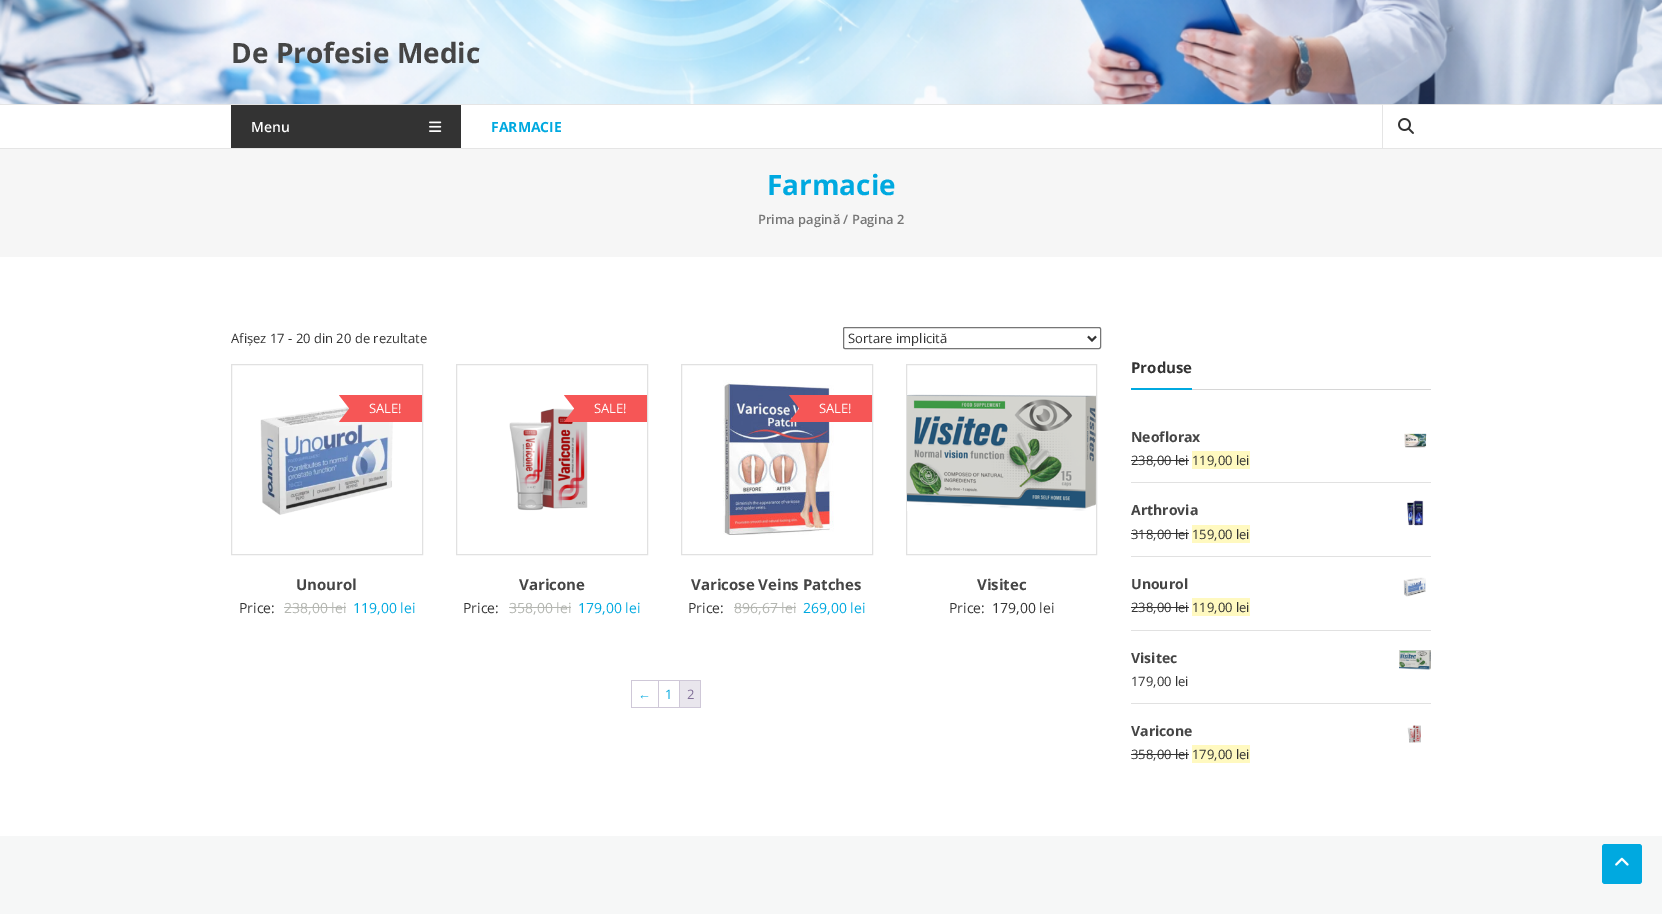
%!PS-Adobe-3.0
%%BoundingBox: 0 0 1662 914
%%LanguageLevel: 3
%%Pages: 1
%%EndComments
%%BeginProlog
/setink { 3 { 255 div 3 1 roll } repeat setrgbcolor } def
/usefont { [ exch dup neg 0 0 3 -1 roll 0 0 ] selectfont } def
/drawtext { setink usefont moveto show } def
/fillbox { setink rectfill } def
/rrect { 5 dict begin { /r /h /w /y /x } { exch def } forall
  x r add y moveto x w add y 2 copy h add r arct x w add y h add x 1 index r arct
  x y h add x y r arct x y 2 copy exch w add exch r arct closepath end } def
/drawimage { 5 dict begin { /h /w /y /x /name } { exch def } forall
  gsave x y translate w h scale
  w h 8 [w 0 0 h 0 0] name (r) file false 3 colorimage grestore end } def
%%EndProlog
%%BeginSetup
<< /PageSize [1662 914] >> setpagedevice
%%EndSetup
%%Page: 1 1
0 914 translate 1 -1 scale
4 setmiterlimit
0 0 1662 914 255 255 255 fillbox
(assets/img1.rgb) 0 0 1662 104 drawimage
(De Profesie Medic) 231 63 /OpenSans-Bold 28 69 69 69 drawtext
0 104 1662 1 229 229 229 fillbox
0 148 1662 1 229 229 229 fillbox
231 105 230 43 51 51 51 fillbox
(Menu) 251 132 /OpenSans-SemiBold 14 255 255 255 drawtext
(assets/img2.rgb) 429 121 13 11 drawimage
(FARMACIE) 491 132 /OpenSans-Bold 14 0 169 224 drawtext
1382 105 1 43 229 229 229 fillbox
(assets/img3.rgb) 1398 118 16 16 drawimage
0 149 1662 108 246 246 246 fillbox
(Farmacie) 767 195 /OpenSans-Bold 28 0 169 224 drawtext
(Prima pagină / Pagina 2) 758 224 /OpenSans-SemiBold 12.9 118 118 118 drawtext
(Afișez 17 - 20 din 20 de rezultate) 231 343 /OpenSans-Regular 13 51 51 51 drawtext
118 118 118 setink
843.5 327.5 257 21 1.5 rrect stroke
51 51 51 setink
2 setlinewidth
1088 336.5 moveto 1092 340.5 lineto 1096 336.5 lineto stroke
(Sortare implicită) 848 343 /OpenSans-Regular 13 51 51 51 drawtext
225 225 225 setink
1 setlinewidth
231.5 364.5 191 190 rectstroke
(assets/img4.rgb) 260 406 133 109 drawimage
349 395 73 27 246 86 86 fillbox
349 395 moveto 349 408 lineto 339 395 lineto closepath 349 409 moveto 349 422 lineto 339 422 lineto closepath fill
(SALE!) 369 413 /OpenSans-Regular 13 255 255 255 drawtext
(Unourol) 296 590 /OpenSans-Bold 15 69 69 69 drawtext
(Price:) 239 613 /OpenSans-Regular 14 51 51 51 drawtext
(238,00 lei) 284 613 /OpenSans-Regular 14 180 182 177 drawtext
284 607 62 1 180 182 177 fillbox
(119,00 lei) 353 613 /OpenSans-Regular 14 0 169 224 drawtext
225 225 225 setink
456.5 364.5 191 190 rectstroke
(assets/img5.rgb) 509 408 79 103 drawimage
574 395 73 27 246 86 86 fillbox
574 395 moveto 574 408 lineto 564 395 lineto closepath 574 409 moveto 574 422 lineto 564 422 lineto closepath fill
(SALE!) 594 413 /OpenSans-Regular 13 255 255 255 drawtext
(Varicone) 519 590 /OpenSans-Bold 15 69 69 69 drawtext
(Price:) 463 613 /OpenSans-Regular 14 51 51 51 drawtext
(358,00 lei) 509 613 /OpenSans-Regular 14 180 182 177 drawtext
509 607 62 1 180 182 177 fillbox
(179,00 lei) 578 613 /OpenSans-Regular 14 0 169 224 drawtext
225 225 225 setink
681.5 364.5 191 190 rectstroke
(assets/img6.rgb) 723 380 111 155 drawimage
799 395 73 27 246 86 86 fillbox
799 395 moveto 799 408 lineto 789 395 lineto closepath 799 409 moveto 799 422 lineto 789 422 lineto closepath fill
(SALE!) 819 413 /OpenSans-Regular 13 255 255 255 drawtext
(Varicose Veins Patches) 691 590 /OpenSans-Bold 15 69 69 69 drawtext
(Price:) 688 613 /OpenSans-Regular 14 51 51 51 drawtext
(896,67 lei) 734 613 /OpenSans-Regular 14 180 182 177 drawtext
734 607 62 1 180 182 177 fillbox
(269,00 lei) 803 613 /OpenSans-Regular 14 0 169 224 drawtext
225 225 225 setink
906.5 364.5 190 190 rectstroke
(assets/img7.rgb) 907 394 189 117 drawimage
(Visitec) 977 590 /OpenSans-Bold 15 69 69 69 drawtext
(Price:) 949 613 /OpenSans-Regular 14 51 51 51 drawtext
(179,00 lei) 992 613 /OpenSans-Regular 14 51 51 51 drawtext
631 680 70 1 207 200 216 fillbox
631 707 70 1 207 200 216 fillbox
631 680 1 28 207 200 216 fillbox
658 681 1 26 207 200 216 fillbox
(←) 638 699 /LiberationSans-Regular 13 0 169 224 drawtext
679 681 1 26 207 200 216 fillbox
(1) 665 699 /OpenSans-Regular 13 0 169 224 drawtext
700 681 1 26 207 200 216 fillbox
680 681 20 26 233 230 237 fillbox
(2) 687 699 /OpenSans-Regular 13 129 111 152 drawtext
1192 389 239 1 214 214 214 fillbox
1131 388 61 2 0 169 224 fillbox
(Produse) 1131 373 /OpenSans-Bold 15 51 51 51 drawtext
1131 482 300 1 225 225 225 fillbox
(Neoflorax) 1131 442 /OpenSans-Bold 14 69 69 69 drawtext
(assets/img8.rgb) 1404 433 23 15 drawimage
(238,00 lei) 1131 465 /OpenSans-Regular 13 51 51 51 drawtext
1131 460 58 1 51 51 51 fillbox
1192 451 58 18 255 249 192 fillbox
(119,00 lei) 1192 465 /OpenSans-Regular 13 51 51 51 drawtext
1131 556 300 1 225 225 225 fillbox
(Arthrovia) 1131 515 /OpenSans-Bold 14 69 69 69 drawtext
(assets/img9.rgb) 1407 500 17 26 drawimage
(318,00 lei) 1131 539 /OpenSans-Regular 13 51 51 51 drawtext
1131 533 58 1 51 51 51 fillbox
1192 525 58 18 255 249 192 fillbox
(159,00 lei) 1192 539 /OpenSans-Regular 13 51 51 51 drawtext
1131 630 300 1 225 225 225 fillbox
(Unourol) 1131 589 /OpenSans-Bold 14 69 69 69 drawtext
(assets/img10.rgb) 1403 577 23 20 drawimage
(238,00 lei) 1131 612 /OpenSans-Regular 13 51 51 51 drawtext
1131 607 58 1 51 51 51 fillbox
1192 598 58 18 255 249 192 fillbox
(119,00 lei) 1192 612 /OpenSans-Regular 13 51 51 51 drawtext
1131 703 300 1 225 225 225 fillbox
(Visitec) 1131 663 /OpenSans-Bold 14 69 69 69 drawtext
(assets/img11.rgb) 1399 650 32 20 drawimage
(179,00 lei) 1131 686 /OpenSans-Regular 13 51 51 51 drawtext
(Varicone) 1131 736 /OpenSans-Bold 14 69 69 69 drawtext
(assets/img12.rgb) 1407 725 14 18 drawimage
(358,00 lei) 1131 759 /OpenSans-Regular 13 51 51 51 drawtext
1131 754 58 1 51 51 51 fillbox
1192 745 58 18 255 249 192 fillbox
(179,00 lei) 1192 759 /OpenSans-Regular 13 51 51 51 drawtext
0 836 1662 78 246 247 247 fillbox
0 169 224 setink
1602 844 40 40 3 rrect fill
(assets/img13.rgb) 1615 857 14 9 drawimage
showpage
%%EOF
